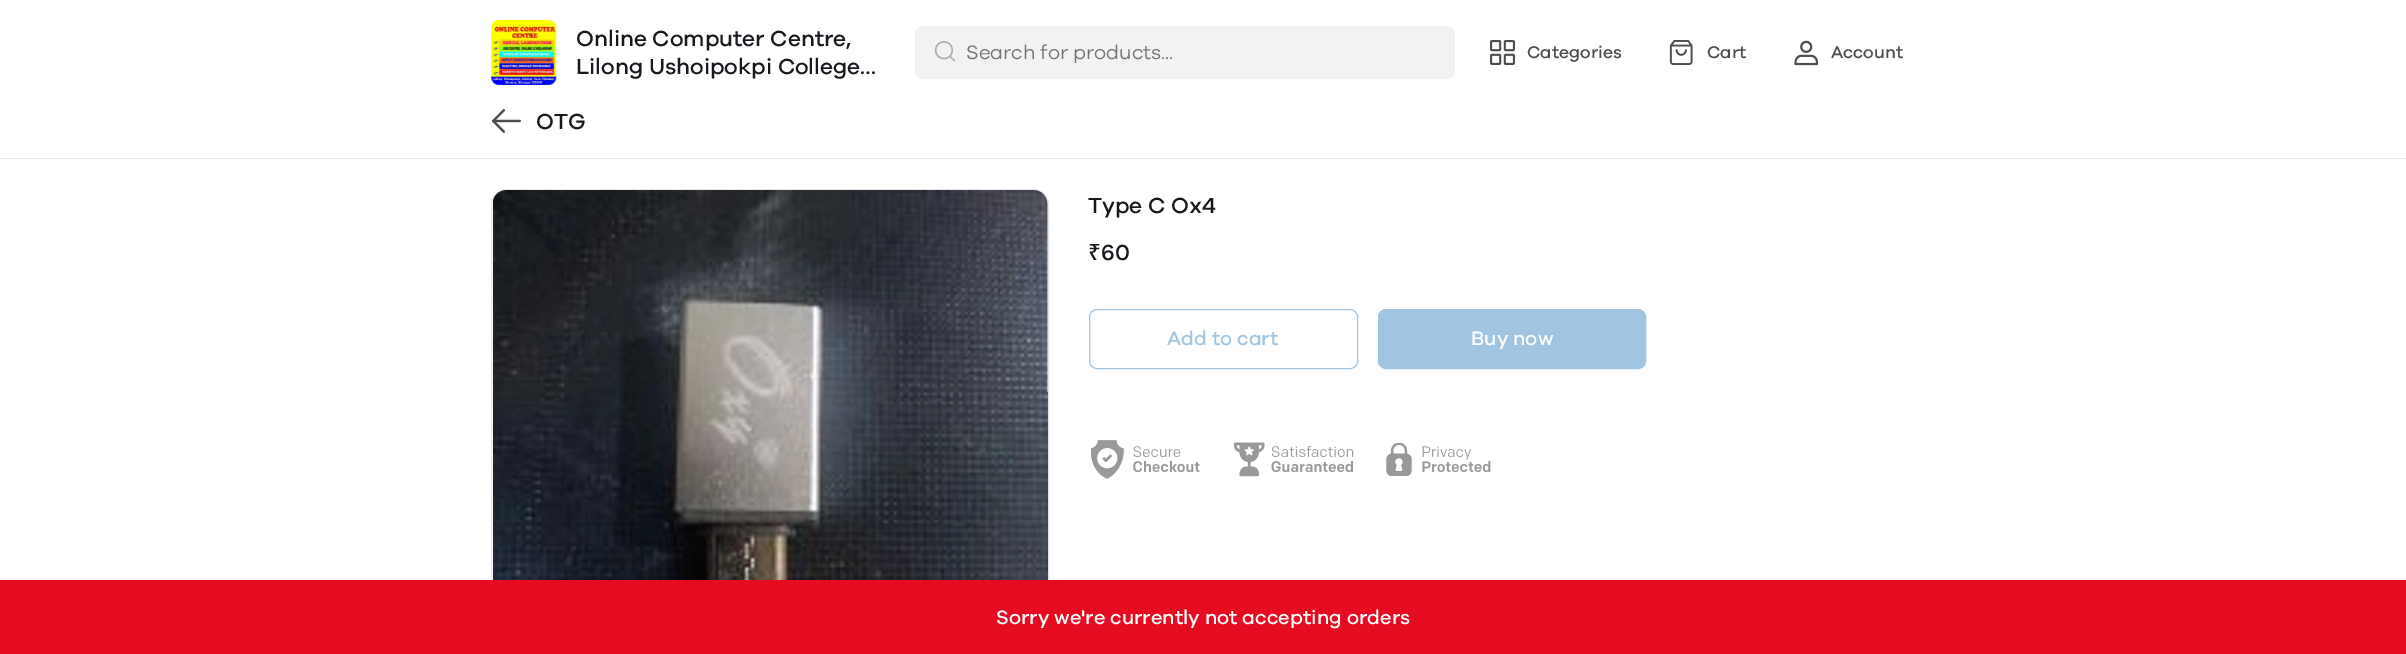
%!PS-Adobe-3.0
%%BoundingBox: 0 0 2406 654
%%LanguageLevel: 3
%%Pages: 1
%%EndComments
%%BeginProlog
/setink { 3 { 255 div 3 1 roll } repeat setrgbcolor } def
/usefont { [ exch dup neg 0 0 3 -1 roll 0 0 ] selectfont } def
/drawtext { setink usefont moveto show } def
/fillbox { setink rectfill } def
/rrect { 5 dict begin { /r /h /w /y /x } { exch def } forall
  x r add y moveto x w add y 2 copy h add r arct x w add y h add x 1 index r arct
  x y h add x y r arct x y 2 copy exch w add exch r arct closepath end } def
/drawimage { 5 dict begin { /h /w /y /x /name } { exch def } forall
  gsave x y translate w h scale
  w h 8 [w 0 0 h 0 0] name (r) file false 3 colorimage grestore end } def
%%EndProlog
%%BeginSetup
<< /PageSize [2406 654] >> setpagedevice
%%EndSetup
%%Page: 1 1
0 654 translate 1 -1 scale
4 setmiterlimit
0 0 2406 654 255 255 255 fillbox
0 158 2406 1 230 230 230 fillbox
(assets/img1.rgb) 491 20 66 65 drawimage
(Online Computer Centre,) 576 46 /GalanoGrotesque-Medium 22.5 26 24 30 drawtext
(Lilong Ushoipokpi College…) 576 74 /GalanoGrotesque-Medium 22.5 26 24 30 drawtext
242 242 242 setink
915 26 540 53 8 rrect fill
(assets/img2.rgb) 934 41 22 21 drawimage
(Search for products...) 966 59 /GalanoGrotesque-Regular 20 117 117 117 drawtext
(assets/img3.rgb) 1490 40 25 25 drawimage
(Categories) 1527 58 /GalanoGrotesque-Medium 17.5 77 77 77 drawtext
(assets/img4.rgb) 1669 40 24 25 drawimage
(Cart) 1707 58 /GalanoGrotesque-Medium 17.5 77 77 77 drawtext
(assets/img5.rgb) 1794 40 25 26 drawimage
(Account) 1831 58 /GalanoGrotesque-Medium 17.5 77 77 77 drawtext
(assets/img6.rgb) 492 109 29 24 drawimage
(OTG) 536 129 /GalanoGrotesque-Medium 22.5 26 24 30 drawtext
230 230 230 setink
491.5 189.5 557 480 14.5 rrect stroke
(assets/img7.rgb) 493 190 555 390 drawimage
(Type C Ox4) 1088 213 /GalanoGrotesque-Medium 22.5 26 24 30 drawtext
(₹) 1088 260 /NotoSans-Medium 22.5 26 24 30 drawtext
(60) 1101 260 /GalanoGrotesque-Medium 22.5 26 24 30 drawtext
161 197 225 setink
1089.5 309.5 268 59 7.5 rrect stroke
(Add to cart) 1167 345 /GalanoGrotesque-Medium 20 161 197 225 drawtext
1378.5 309.5 267 59 7.5 rrect gsave fill grestore
stroke
(Buy now) 1471 345 /GalanoGrotesque-Medium 20 255 255 255 drawtext
(assets/img8.rgb) 1091 440 109 39 drawimage
(assets/img9.rgb) 1233 442 121 35 drawimage
(assets/img10.rgb) 1386 443 105 33 drawimage
0 580 2406 74 229 11 32 fillbox
(Sorry we're currently not accepting orders) 996 624 /GalanoGrotesque-Medium 20 255 255 255 drawtext
showpage
%%EOF
